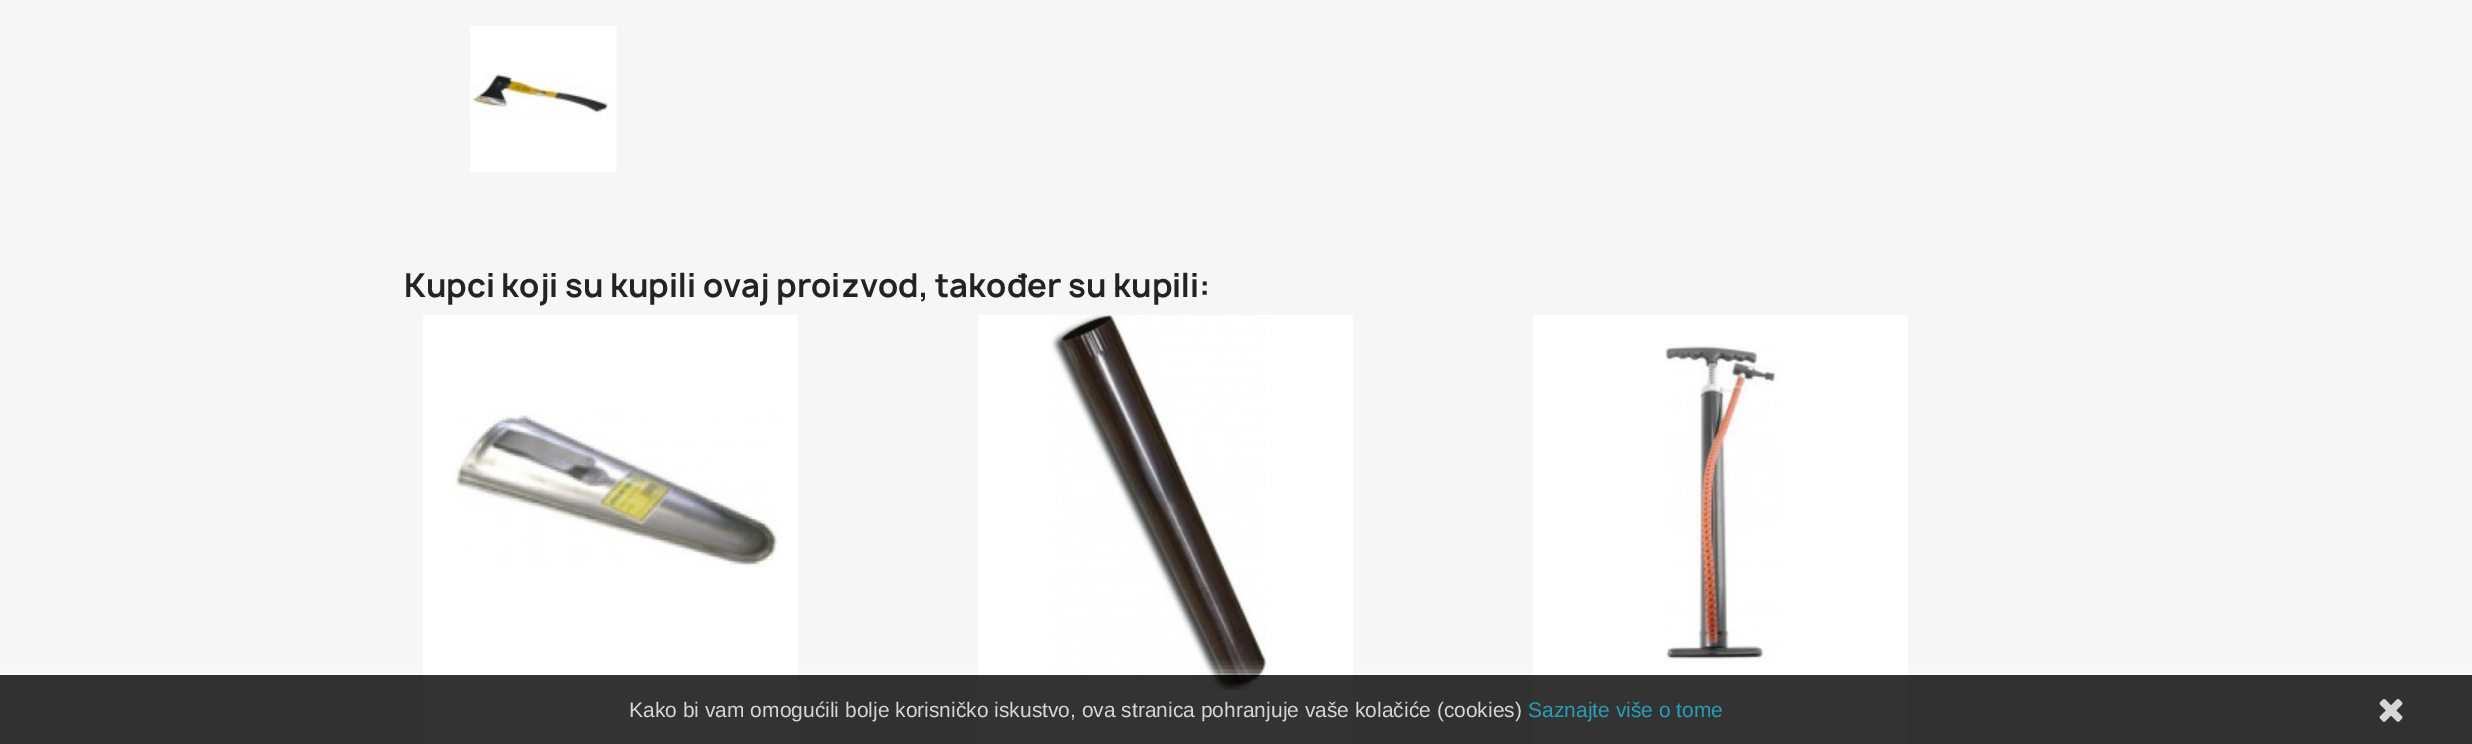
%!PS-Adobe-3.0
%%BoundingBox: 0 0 2472 744
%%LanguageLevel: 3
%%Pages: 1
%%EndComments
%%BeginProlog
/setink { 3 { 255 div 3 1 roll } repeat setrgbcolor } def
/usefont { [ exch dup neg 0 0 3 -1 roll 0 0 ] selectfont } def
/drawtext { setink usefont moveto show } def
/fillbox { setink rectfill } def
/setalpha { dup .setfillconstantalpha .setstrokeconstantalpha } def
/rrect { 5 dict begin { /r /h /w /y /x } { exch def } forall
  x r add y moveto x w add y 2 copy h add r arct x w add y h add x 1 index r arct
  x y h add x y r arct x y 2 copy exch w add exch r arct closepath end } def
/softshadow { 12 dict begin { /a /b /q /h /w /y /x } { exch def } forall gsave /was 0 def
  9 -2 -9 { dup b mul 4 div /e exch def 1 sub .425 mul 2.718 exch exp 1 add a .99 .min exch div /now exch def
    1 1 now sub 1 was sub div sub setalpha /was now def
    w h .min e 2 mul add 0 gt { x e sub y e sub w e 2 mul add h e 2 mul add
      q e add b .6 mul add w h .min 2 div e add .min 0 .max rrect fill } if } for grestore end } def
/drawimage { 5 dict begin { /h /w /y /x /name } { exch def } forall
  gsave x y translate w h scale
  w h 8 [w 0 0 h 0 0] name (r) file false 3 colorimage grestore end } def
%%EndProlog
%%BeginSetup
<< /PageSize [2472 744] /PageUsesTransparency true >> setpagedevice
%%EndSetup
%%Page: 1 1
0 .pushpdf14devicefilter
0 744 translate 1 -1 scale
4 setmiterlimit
0 0 2472 744 246 246 246 fillbox
(assets/img1.rgb) 470 26 147 147 drawimage
(Kupci koji su kupili ovaj proizvod, također su kupili:) 404 297 /Manrope-Bold 31.5 35 35 35 drawtext
423 315 375 429 255 255 255 fillbox
(assets/img2.rgb) 451 411 329 156 drawimage
978 315 375 429 255 255 255 fillbox
(assets/img3.rgb) 1051 315 216 375 drawimage
1533 315 375 429 255 255 255 fillbox
(assets/img4.rgb) 1665 344 117 319 drawimage
gsave
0 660 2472 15 rectclip
0 675 2472 69 0 7.5 0.8 softshadow
grestore
0.8 setalpha
0 675 2472 69 0 0 0 fillbox
1 setalpha
(Kako bi vam omogućili bolje korisničko iskustvo, ova stranica pohranjuje vaše kolačiće \(cookies\)) 629 717 /LiberationSans-Regular 21 214 214 214 drawtext
(Saznajte više o tome) 1528 717 /LiberationSans-Regular 21 39 158 182 drawtext
(assets/img5.rgb) 2379 699 24 23 drawimage
.poppdf14devicefilter showpage
%%EOF
